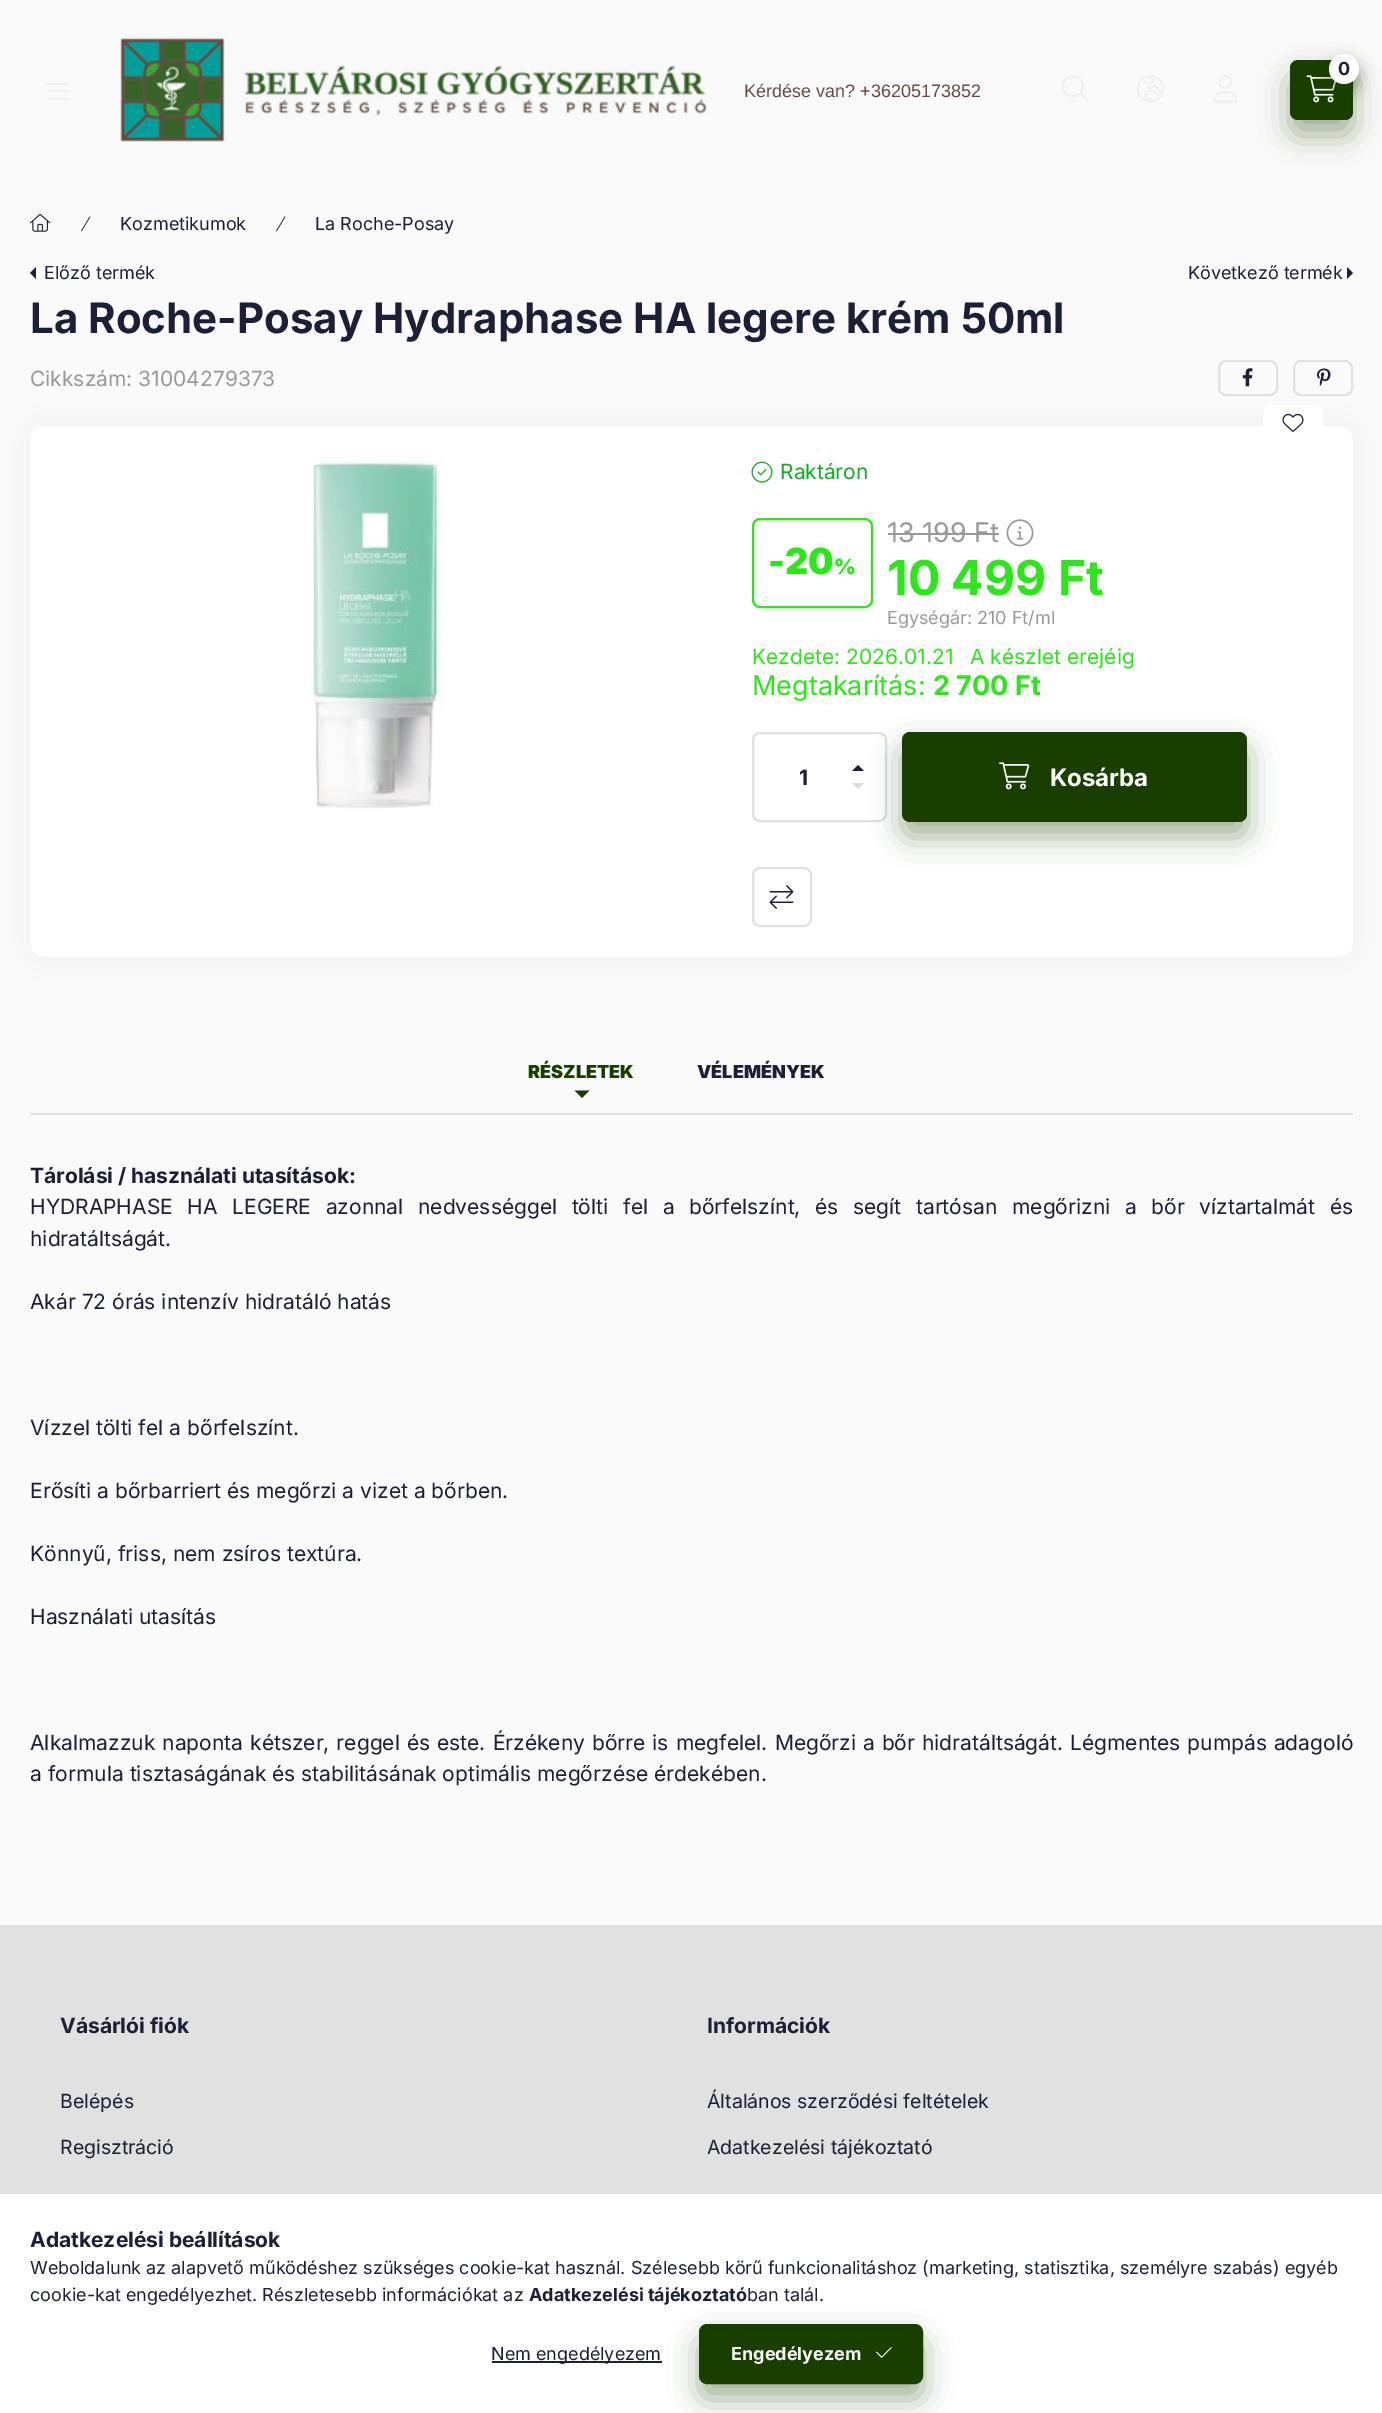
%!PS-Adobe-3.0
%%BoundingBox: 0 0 1382 2413
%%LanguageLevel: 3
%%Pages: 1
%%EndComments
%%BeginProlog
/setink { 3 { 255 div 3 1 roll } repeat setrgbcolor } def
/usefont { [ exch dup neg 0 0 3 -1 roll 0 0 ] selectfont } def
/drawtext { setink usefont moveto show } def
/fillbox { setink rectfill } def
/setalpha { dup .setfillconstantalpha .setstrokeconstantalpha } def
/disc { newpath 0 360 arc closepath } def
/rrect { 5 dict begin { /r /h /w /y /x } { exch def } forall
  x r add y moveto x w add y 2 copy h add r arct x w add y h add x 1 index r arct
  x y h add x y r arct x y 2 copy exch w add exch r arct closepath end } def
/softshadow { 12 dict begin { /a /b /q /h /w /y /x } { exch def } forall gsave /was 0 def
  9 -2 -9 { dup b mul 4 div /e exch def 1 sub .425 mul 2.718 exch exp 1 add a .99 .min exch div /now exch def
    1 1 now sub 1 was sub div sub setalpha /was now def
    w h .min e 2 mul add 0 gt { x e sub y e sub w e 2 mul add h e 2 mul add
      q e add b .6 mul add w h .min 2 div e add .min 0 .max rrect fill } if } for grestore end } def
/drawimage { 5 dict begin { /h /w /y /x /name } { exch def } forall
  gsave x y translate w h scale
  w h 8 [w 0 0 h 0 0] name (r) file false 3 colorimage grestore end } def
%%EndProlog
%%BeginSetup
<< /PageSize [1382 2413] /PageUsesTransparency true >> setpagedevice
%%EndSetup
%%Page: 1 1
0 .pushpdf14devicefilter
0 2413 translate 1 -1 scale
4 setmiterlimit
0 0 1382 2413 250 250 250 fillbox
25 63 0 setink
1290 75 63 60 8 15 0.4 softshadow
1290 60 63 60 8 rrect fill
(assets/img1.rgb) 1306 75 31 28 drawimage
1329 62 30 30 15 7.5 0.4 softshadow
255 255 255 setink
1344 69 15 disc fill
(0) 1338 75 /Inter-Bold 18 27 32 54 drawtext
(assets/img2.rgb) 1062 75 27 27 drawimage
(assets/img3.rgb) 1137 75 27 28 drawimage
(assets/img4.rgb) 1213 75 24 28 drawimage
47 83 21 2 238 238 238 fillbox
47 90 21 2 238 238 238 fillbox
47 98 21 2 238 238 238 fillbox
(assets/img5.rgb) 120 37 587 105 drawimage
(Kérdése van? +36205173852) 744 97 /LiberationSans-Regular 18 105 75 64 drawtext
(assets/img6.rgb) 30 213 21 19 drawimage
(assets/img7.rgb) 81 216 10 16 drawimage
(Kozmetikumok) 120 230 /Inter-Regular 18 27 32 54 drawtext
(assets/img7.rgb) 276 216 10 16 drawimage
(La Roche-Posay) 315 230 /Inter-Regular 18 27 32 54 drawtext
36 279 moveto 36 267 lineto 30 273 lineto closepath fill
(Előző termék) 44 279 /Inter-Regular 18 27 32 54 drawtext
(Következő termék) 1188 279 /Inter-Regular 18 27 32 54 drawtext
1347 279 moveto 1347 267 lineto 1353 273 lineto closepath fill
(La Roche-Posay Hydraphase HA legere krém 50ml) 30 333 /Inter-Bold 42 27 32 54 drawtext
(Cikkszám: 31004279373) 30 386 /Inter-Regular 21 153 153 153 drawtext
225 225 225 setink
2 setlinewidth
1219 361 58 34 7 rrect stroke
(assets/img8.rgb) 1242 368 11 19 drawimage
1294 361 58 34 7 rrect stroke
(assets/img9.rgb) 1317 368 14 18 drawimage
25 63 0 setink
30 426 1323 531 15 15 0.05 softshadow
255 255 255 setink
30 426 1323 531 15 rrect fill
1263 405 60 36 8 rrect fill
(assets/img10.rgb) 1282 413 22 19 drawimage
(assets/img11.rgb) 311 456 133 353 drawimage
(assets/img12.rgb) 751 461 22 22 drawimage
(Raktáron) 780 479 /Inter-Regular 21 16 174 32 drawtext
42 231 23 setink
753 519 119 88 7 rrect stroke
(-20) 768 574 /Inter-Black 36 42 231 23 drawtext
(%) 834 574 /Inter-Black 21 42 231 23 drawtext
(13 199 Ft) 887 542 /Inter-Regular 27 153 153 153 drawtext
888 533 111 2 153 153 153 fillbox
(assets/img13.rgb) 1006 519 28 28 drawimage
(10 499 Ft) 887 595 /Inter-Bold 48 42 231 23 drawtext
(Egységár: 210 Ft/ml) 887 624 /Inter-Regular 18 153 153 153 drawtext
(Kezdete: 2026.01.21) 752 664 /Inter-Regular 21 42 231 23 drawtext
(A készlet erejéig) 970 664 /Inter-Regular 21 42 231 23 drawtext
(Megtakarítás:) 752 695 /Inter-Regular 27 42 231 23 drawtext
(2 700 Ft) 933 695 /Inter-Bold 27 42 231 23 drawtext
225 225 225 setink
753 733 133 88 7 rrect stroke
(1) 799 785 /Inter-Bold 21 27 32 54 drawtext
864 771 moveto 852 771 lineto 858 765 lineto closepath fill
221 221 221 setink
852 783 moveto 864 783 lineto 858 789 lineto closepath fill
25 63 0 setink
902 747 345 90 8 15 0.4 softshadow
902 732 345 90 8 rrect fill
(assets/img14.rgb) 999 762 31 28 drawimage
(Kosárba) 1050 786 /Inter-Bold 24 255 255 255 drawtext
225 225 225 setink
753 868 58 58 7 rrect stroke
(assets/img15.rgb) 769 885 25 24 drawimage
30 1113 1323 2 225 225 225 fillbox
(RÉSZLETEK) 528 1078 /Inter-Black 18 25 63 0 drawtext
574.5 1090.5 moveto 589.5 1090.5 lineto 582 1098 lineto closepath fill
(VÉLEMÉNYEK) 697 1078 /Inter-Black 18 27 32 54 drawtext
(Tárolási / használati utasítások:) 30 1183 /Inter-Bold 21 27 32 54 drawtext
/Inter-Regular 21 usefont
30 1214 moveto 8.75 0 32 (HYDRAPHASE HA LEGERE azonnal nedvességgel tölti fel a bőrfelszínt, és segít tartósan megőrizni a bőr víztartalmát és) widthshow
(hidratáltságát.) 30 1246 /Inter-Regular 21 27 32 54 drawtext
(Akár 72 órás intenzív hidratáló hatás) 30 1309 /Inter-Regular 21 27 32 54 drawtext
(Vízzel tölti fel a bőrfelszínt.) 30 1435 /Inter-Regular 21 27 32 54 drawtext
(Erősíti a bőrbarriert és megőrzi a vizet a bőrben.) 30 1498 /Inter-Regular 21 27 32 54 drawtext
(Könnyű, friss, nem zsíros textúra.) 30 1561 /Inter-Regular 21 27 32 54 drawtext
(Használati utasítás) 30 1624 /Inter-Regular 21 27 32 54 drawtext
30 1750 moveto 1.1 0 32 (Alkalmazzuk naponta kétszer, reggel és este. Érzékeny bőrre is megfelel. Megőrzi a bőr hidratáltságát. Légmentes pumpás adagoló) widthshow
(a formula tisztaságának és stabilitásának optimális megőrzése érdekében.) 30 1781 /Inter-Regular 21 27 32 54 drawtext
0 1925 1382 269 225 225 225 fillbox
(Vásárlói fiók) 60 2033 /Inter-Bold 21 27 32 54 drawtext
(Belépés) 60 2108 /Inter-Regular 19.5 27 32 54 drawtext
(Regisztráció) 60 2154 /Inter-Regular 19.5 27 32 54 drawtext
(Információk) 707 2033 /Inter-Bold 21 27 32 54 drawtext
(Általános szerződési feltételek) 707 2108 /Inter-Regular 19.5 27 32 54 drawtext
(Adatkezelési tájékoztató) 707 2154 /Inter-Regular 19.5 27 32 54 drawtext
0 2194 1382 219 255 255 255 fillbox
(Adatkezelési beállítások) 30 2247 /Inter-Bold 21 27 32 54 drawtext
(Weboldalunk az alapvető működéshez szükséges cookie-kat használ. Szélesebb körű funkcionalitáshoz \(marketing, statisztika, személyre szabás\) egyéb) 30 2274 /Inter-Regular 18 27 32 54 drawtext
(cookie-kat engedélyezhet. Részletesebb információkat az) 30 2301 /Inter-Regular 18 27 32 54 drawtext
(Adatkezelési tájékoztató) 529 2301 /Inter-Bold 18 27 32 54 drawtext
(ban talál.) 747 2301 /Inter-Regular 18 27 32 54 drawtext
492 2361 170 2 27 32 54 fillbox
(Nem engedélyezem) 491 2360 /Inter-Regular 18 27 32 54 drawtext
25 63 0 setink
699 2339 224 60 8 15 0.4 softshadow
700 2325 222 58 7 rrect gsave fill grestore
stroke
(Engedélyezem) 731 2360 /Inter-Bold 18 255 255 255 drawtext
(assets/img16.rgb) 876 2347 16 11 drawimage
.poppdf14devicefilter showpage
%%EOF
